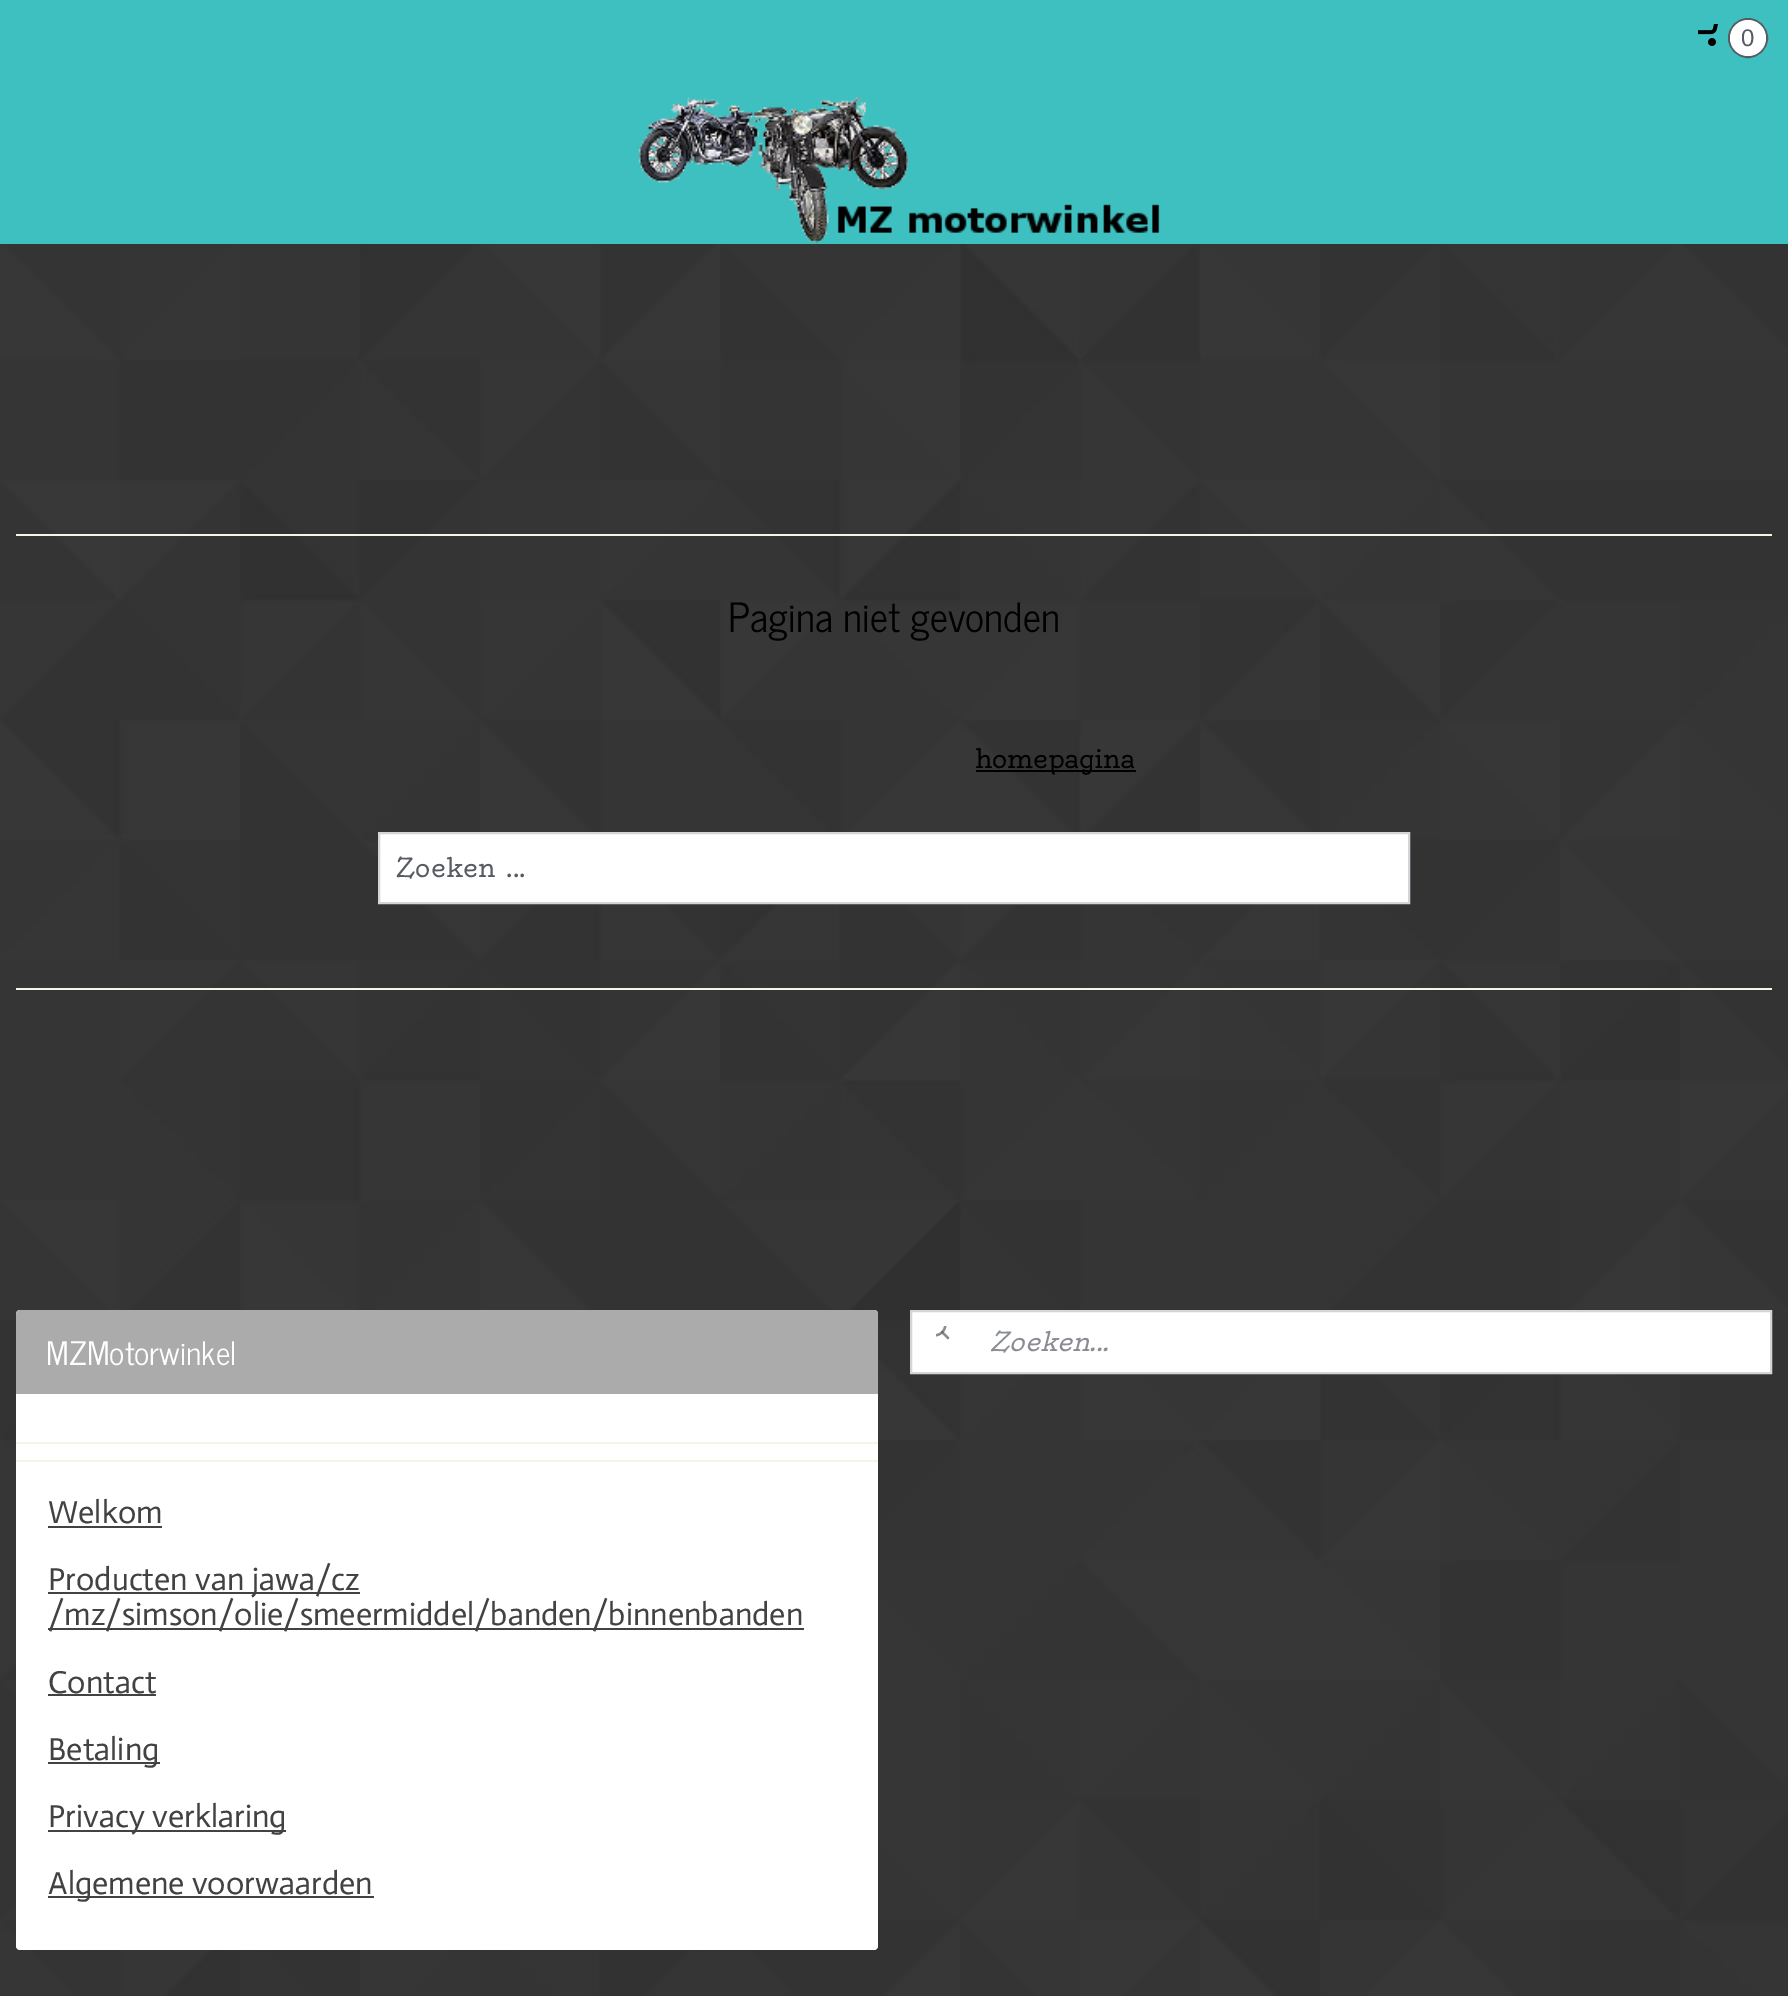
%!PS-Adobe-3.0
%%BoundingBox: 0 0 1788 1996
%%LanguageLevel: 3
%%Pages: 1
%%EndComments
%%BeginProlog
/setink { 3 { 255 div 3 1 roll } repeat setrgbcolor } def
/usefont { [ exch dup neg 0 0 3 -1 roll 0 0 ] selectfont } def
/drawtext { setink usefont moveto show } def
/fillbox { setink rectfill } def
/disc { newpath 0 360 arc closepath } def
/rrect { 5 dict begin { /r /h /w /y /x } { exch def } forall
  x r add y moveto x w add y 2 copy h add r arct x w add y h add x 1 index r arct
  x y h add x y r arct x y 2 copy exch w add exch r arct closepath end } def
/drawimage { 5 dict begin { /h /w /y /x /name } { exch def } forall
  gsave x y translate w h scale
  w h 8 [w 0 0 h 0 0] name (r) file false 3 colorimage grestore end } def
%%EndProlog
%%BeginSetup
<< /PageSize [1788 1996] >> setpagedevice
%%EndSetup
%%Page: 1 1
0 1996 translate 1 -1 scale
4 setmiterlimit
0 0 1788 1996 255 255 255 fillbox
0 0 1788 244 63 192 192 fillbox
(assets/img1.rgb) 1698 24 20 22 drawimage
87 91 98 setink
2 setlinewidth
1748 38 19 disc stroke
255 255 255 setink
1748 38 18 disc fill
(0) 1741 46 /LiberationSans-Regular 24 87 91 98 drawtext
(assets/img2.rgb) 638 97 522 146 drawimage
(assets/img3.rgb) 0 244 1788 1752 drawimage
16 534 1756 2 247 243 233 fillbox
16 988 1756 2 247 243 233 fillbox
(Pagina niet gevonden) 728 632 /NewsCycle-Regular 40 0 0 0 drawtext
976 770 160 2 0 0 0 fillbox
(homepagina) 975 768 /Oldenburg-Regular 26 0 0 0 drawtext
255 255 255 setink
379 833 moveto 1409 833 lineto 1409 903 lineto 379 903 lineto closepath gsave fill grestore
211 213 217 setink
stroke
(Zoeken ...) 396 877 /Oldenburg-Regular 26 87 91 98 drawtext
255 255 255 setink
16 1310 862 640 4 rrect fill
171 171 171 setink
20 1310 moveto 874 1310 lineto 876 1310 878 1312 878 1314 curveto 878 1394 lineto 16 1394 lineto 16 1314 lineto 16 1312 18 1310 20 1310 curveto closepath fill
(MZMotorwinkel) 46 1365 /NewsCycle-Regular 32 255 255 255 drawtext
16 1442 862 2 247 243 233 fillbox
16 1460 862 2 247 243 233 fillbox
(Welkom) 48 1523 /Actor-Regular 32 66 66 66 drawtext
48 1526 114 2 66 66 66 fillbox
48 1592 312 2 66 66 66 fillbox
(Producten van jawa/cz) 48 1590 /Actor-Regular 32 66 66 66 drawtext
48 1628 756 2 66 66 66 fillbox
(/mz/simson/olie/smeermiddel/banden/binnenbanden) 48 1625 /Actor-Regular 32 66 66 66 drawtext
(Contact) 48 1693 /Actor-Regular 32 66 66 66 drawtext
48 1694 108 2 66 66 66 fillbox
48 1762 112 2 66 66 66 fillbox
(Betaling) 48 1760 /Actor-Regular 32 66 66 66 drawtext
48 1830 238 2 66 66 66 fillbox
(Privacy verklaring) 48 1827 /Actor-Regular 32 66 66 66 drawtext
48 1896 326 2 66 66 66 fillbox
(Algemene voorwaarden) 48 1894 /Actor-Regular 32 66 66 66 drawtext
255 255 255 setink
911 1311 moveto 1771 1311 lineto 1771 1373 lineto 911 1373 lineto closepath gsave fill grestore
211 213 217 setink
stroke
(assets/img4.rgb) 936 1326 14 14 drawimage
(Zoeken...) 990 1351 /Oldenburg-Italic 26 137 140 145 drawtext
showpage
%%EOF
